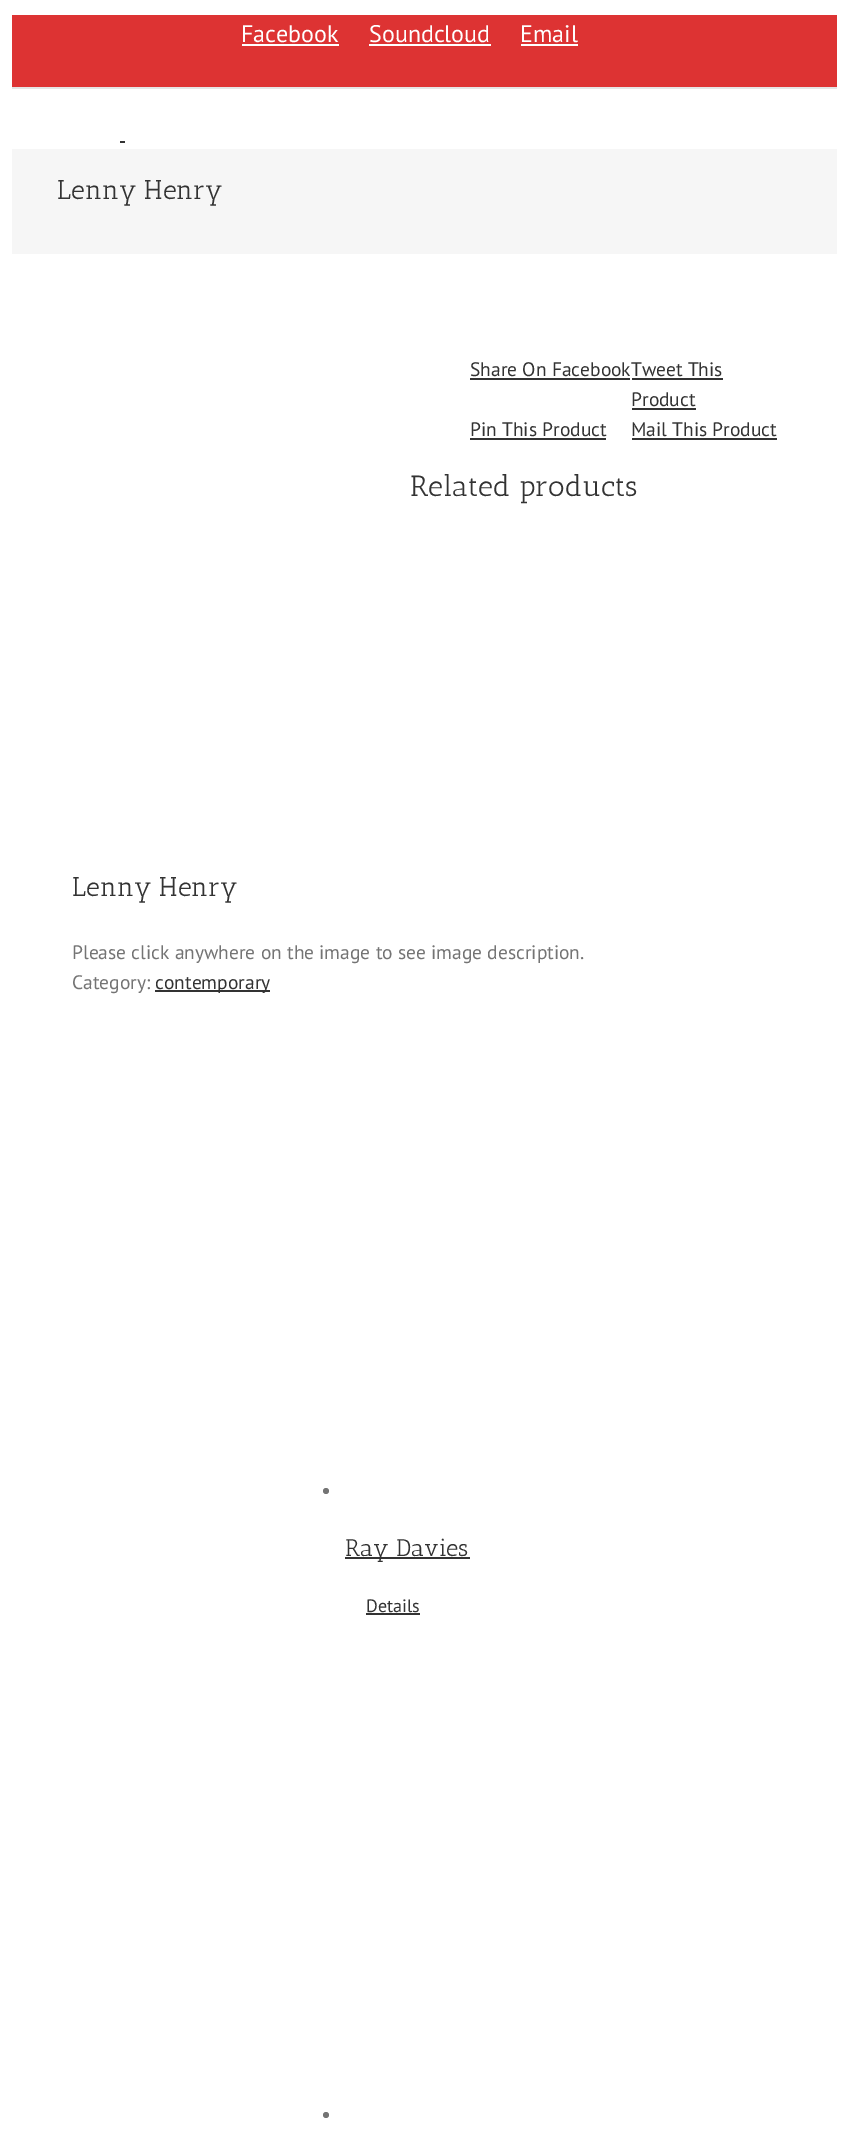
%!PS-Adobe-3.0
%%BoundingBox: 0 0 848 2137
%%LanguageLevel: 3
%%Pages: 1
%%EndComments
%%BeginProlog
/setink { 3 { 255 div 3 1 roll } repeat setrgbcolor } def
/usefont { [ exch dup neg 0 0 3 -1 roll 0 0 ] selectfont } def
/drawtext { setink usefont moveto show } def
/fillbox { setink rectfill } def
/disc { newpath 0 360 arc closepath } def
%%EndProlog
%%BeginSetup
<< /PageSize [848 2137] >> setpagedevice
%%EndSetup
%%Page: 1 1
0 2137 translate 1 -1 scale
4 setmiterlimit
0 0 848 2137 255 255 255 fillbox
12 15 825 72 221 51 51 fillbox
12 87 825 2 229 229 229 fillbox
(Facebook) 241 42 /PTSans-Regular 24 255 255 255 drawtext
242 44 97 2 255 255 255 fillbox
(Soundcloud) 369 42 /PTSans-Regular 24 255 255 255 drawtext
369 44 122 2 255 255 255 fillbox
(Email) 520 42 /PTSans-Regular 24 255 255 255 drawtext
521 44 57 2 255 255 255 fillbox
120 141 5 2 51 51 51 fillbox
12 149 825 105 246 246 246 fillbox
(Lenny Henry) 57 199 /AnticSlab-Regular 27 51 51 51 drawtext
(Share On FacebookTweet This) 470 376 /PTSans-Regular 19.5 51 51 51 drawtext
470 378 160 2 51 51 51 fillbox
(Product) 631 406 /PTSans-Regular 19.5 51 51 51 drawtext
632 378 91 2 51 51 51 fillbox
632 408 64 2 51 51 51 fillbox
(Pin This Product) 470 436 /PTSans-Regular 19.5 51 51 51 drawtext
470 438 136 2 51 51 51 fillbox
(Mail This Product) 631 436 /PTSans-Regular 19.5 51 51 51 drawtext
632 438 145 2 51 51 51 fillbox
(Related products) 410 496 /AnticSlab-Regular 29.25 51 51 51 drawtext
116 116 116 setink
326 1491 3 disc fill
345 1557 125 2 51 51 51 fillbox
(Ray Davies) 345 1556 /AnticSlab-Regular 24 51 51 51 drawtext
(Details) 366 1612 /PTSans-Regular 18 51 51 51 drawtext
366 1613 54 2 51 51 51 fillbox
116 116 116 setink
326 2115 3 disc fill
(Lenny Henry) 72 896 /AnticSlab-Regular 27 51 51 51 drawtext
(Please click anywhere on the image to see image description.) 72 959 /PTSans-Regular 19.5 116 116 116 drawtext
(Category:) 72 989 /PTSans-Regular 19.5 116 116 116 drawtext
155 990 115 2 51 51 51 fillbox
(contemporary) 155 989 /PTSans-Regular 19.5 51 51 51 drawtext
showpage
%%EOF
